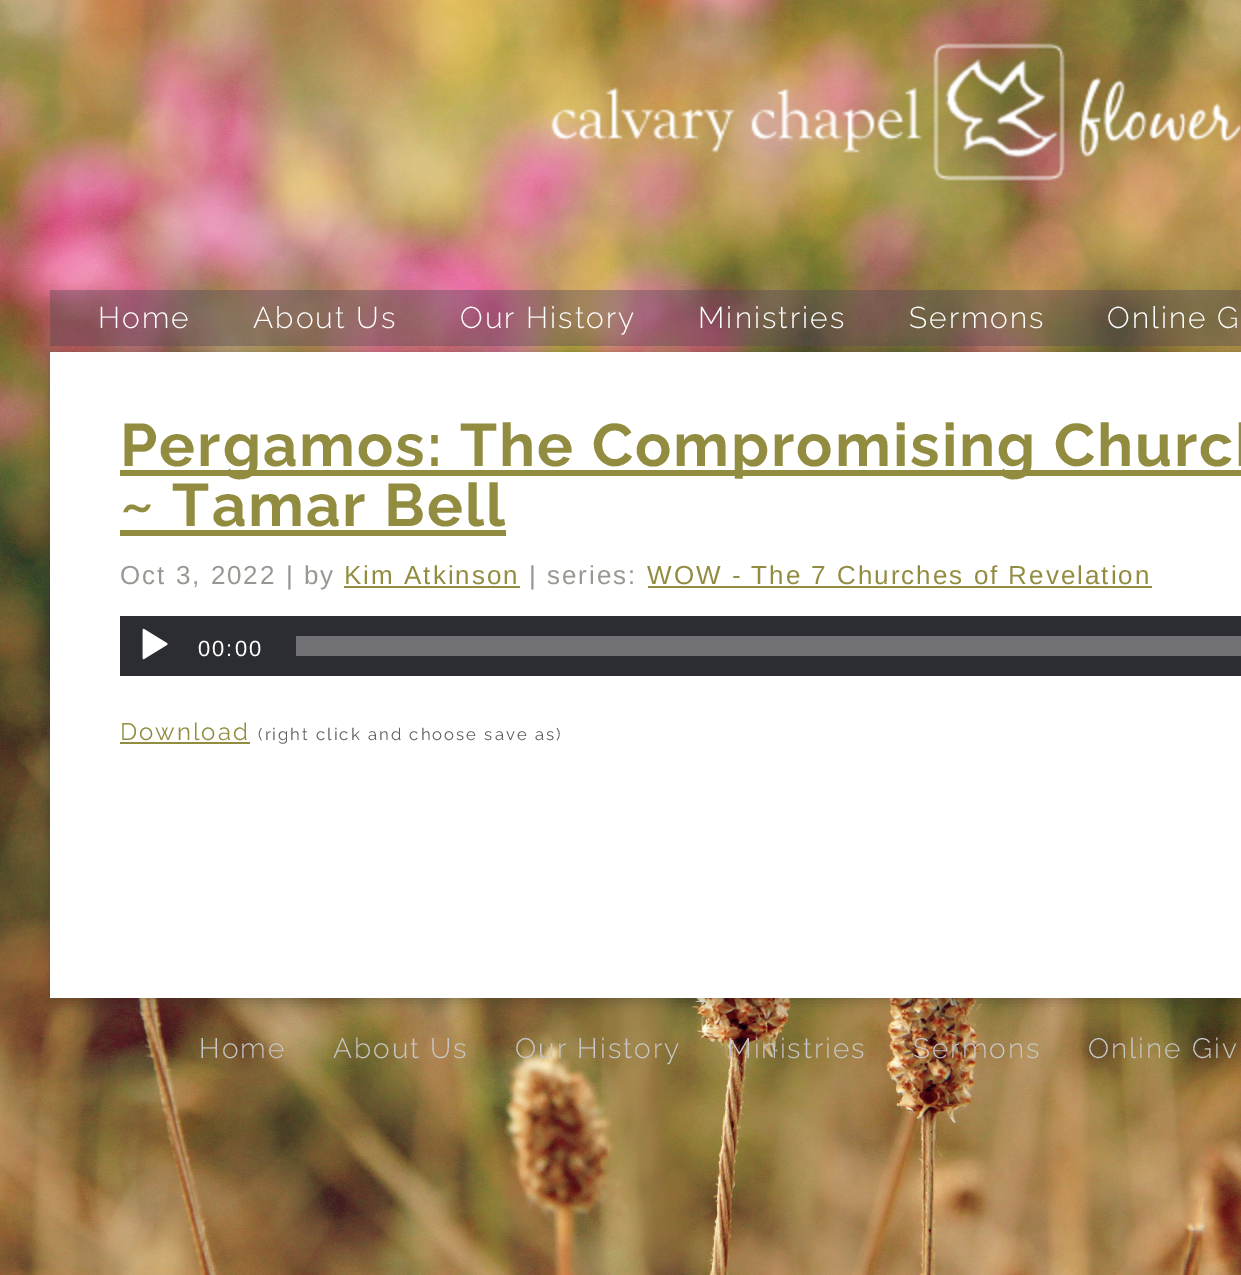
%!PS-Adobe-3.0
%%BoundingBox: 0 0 1241 1275
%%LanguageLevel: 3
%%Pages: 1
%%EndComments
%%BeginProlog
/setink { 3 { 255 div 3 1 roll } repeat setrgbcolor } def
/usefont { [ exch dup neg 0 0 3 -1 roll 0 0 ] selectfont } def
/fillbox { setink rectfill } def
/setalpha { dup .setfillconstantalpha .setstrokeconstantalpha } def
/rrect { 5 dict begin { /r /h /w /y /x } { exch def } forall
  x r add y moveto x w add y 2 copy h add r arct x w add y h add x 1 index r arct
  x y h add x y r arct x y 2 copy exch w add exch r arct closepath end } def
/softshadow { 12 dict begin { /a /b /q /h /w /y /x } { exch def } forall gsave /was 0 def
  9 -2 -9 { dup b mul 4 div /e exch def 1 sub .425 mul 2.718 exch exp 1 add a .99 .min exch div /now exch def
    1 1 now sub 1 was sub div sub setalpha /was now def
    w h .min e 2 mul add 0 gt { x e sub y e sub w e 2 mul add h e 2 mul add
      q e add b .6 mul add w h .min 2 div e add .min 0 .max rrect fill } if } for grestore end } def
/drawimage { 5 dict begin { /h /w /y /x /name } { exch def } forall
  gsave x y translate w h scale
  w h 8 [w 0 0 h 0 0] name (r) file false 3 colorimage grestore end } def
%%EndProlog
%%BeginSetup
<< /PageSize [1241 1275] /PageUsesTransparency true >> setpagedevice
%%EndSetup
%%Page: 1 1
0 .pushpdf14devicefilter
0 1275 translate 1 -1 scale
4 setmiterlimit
0 0 1241 1275 255 255 255 fillbox
(assets/img1.rgb) 0 0 1241 1275 drawimage
(assets/img2.rgb) 551 43 690 138 drawimage
30 30 30 setink
50 356 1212 646 0 7 0.28 softshadow
0.41 setalpha
50 290 1191 56 87 71 87 fillbox
/Raleway-Light 30 usefont
1 setalpha
255 255 255 setink
98 328 moveto 2 0 (Home) ashow
253 328 moveto 2 0 (About Us) ashow
460 328 moveto 2 0 (Our History) ashow
698 328 moveto 2 0 (Ministries) ashow
909 328 moveto 2 0 (Sermons) ashow
1107 328 moveto 2 0 (Online G) ashow
50 352 1191 646 255 255 255 fillbox
120 470 1121 6 146 140 65 fillbox
/Raleway-Bold 60 usefont
120 466 moveto 2 0 (Pergamos: The Compromising Church) ashow
120 526 moveto 2 0 (~ Tamar Bell) ashow
120 530 386 6 146 140 65 fillbox
/LiberationSans-Regular 26 usefont
153 151 146 setink
120 584 moveto 2 0 (Oct 3, 2022 | by) ashow
146 140 65 setink
344 584 moveto 2 0 (Kim Atkinson) ashow
344 586 176 2 146 140 65 fillbox
153 151 146 setink
529 584 moveto 2 0 (| series:) ashow
146 140 65 setink
647 584 moveto 2 0 (WOW - The 7 Churches of Revelation) ashow
648 586 504 2 146 140 65 fillbox
120 616 1121 60 44 45 51 fillbox
(assets/img3.rgb) 142 628 26 32 drawimage
/LiberationSans-Regular 22 usefont
255 255 255 setink
198 656 moveto 2 0 (00:00) ashow
296 636 945 20 114 114 118 fillbox
/Raleway-Regular 24 usefont
146 140 65 setink
120 740 moveto 2 0 (Download) ashow
120 742 130 2 146 140 65 fillbox
/Raleway-Regular 16.75 usefont
94 94 94 setink
258 740 moveto 2 0 (\(right click and choose save as\)) ashow
/Raleway-Light 28 usefont
200 199 199 setink
199 1058 moveto 2 0 (Home) ashow
333 1058 moveto 2 0 (About Us) ashow
515 1058 moveto 2 0 (Our History) ashow
727 1058 moveto 2 0 (Ministries) ashow
913 1058 moveto 2 0 (Sermons) ashow
1088 1058 moveto 2 0 (Online Giv) ashow
.poppdf14devicefilter showpage
%%EOF
